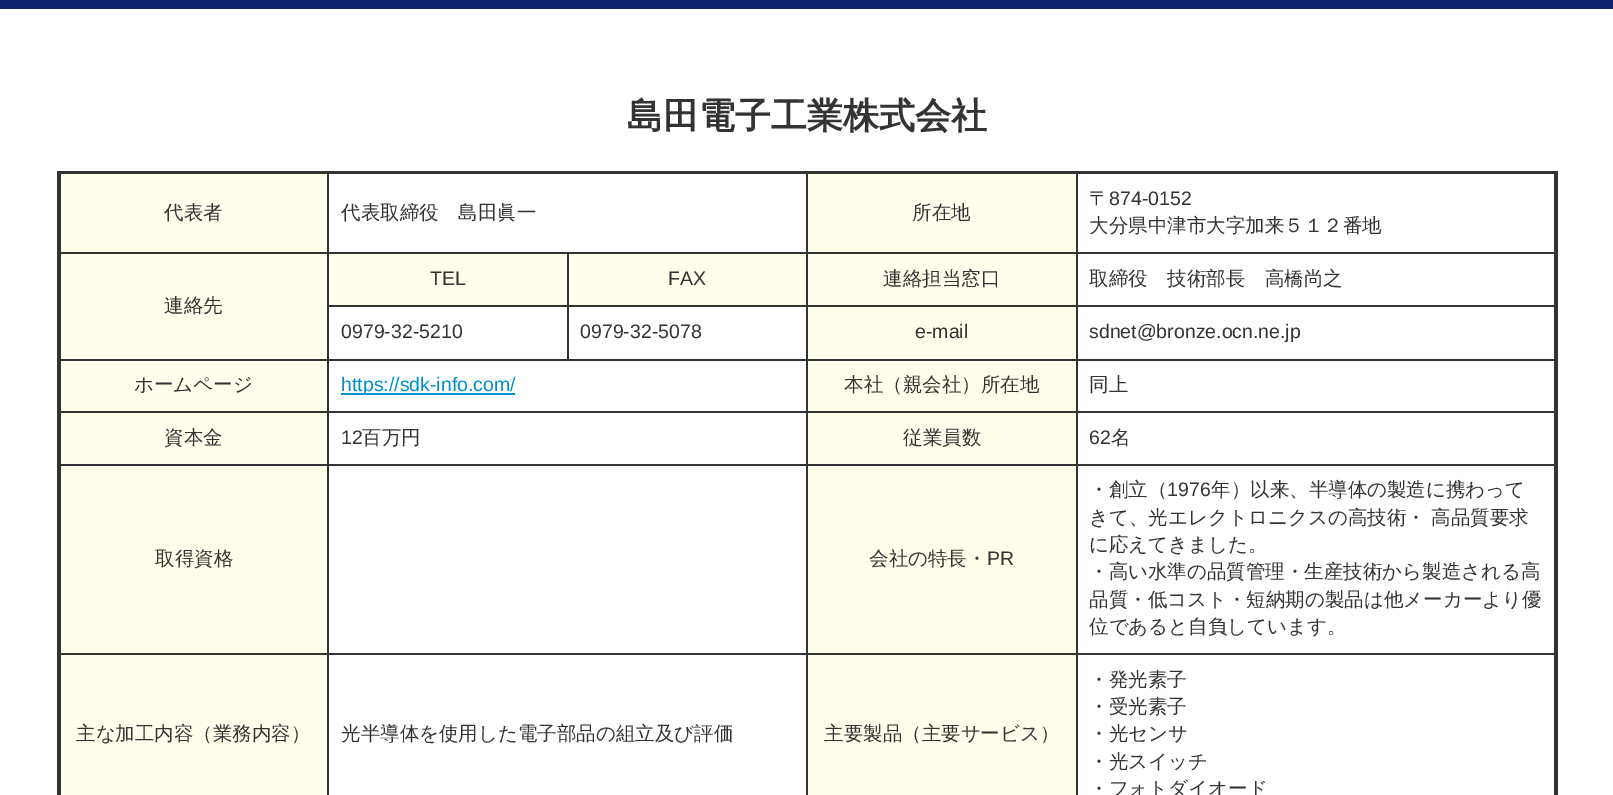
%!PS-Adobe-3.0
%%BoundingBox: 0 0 1613 795
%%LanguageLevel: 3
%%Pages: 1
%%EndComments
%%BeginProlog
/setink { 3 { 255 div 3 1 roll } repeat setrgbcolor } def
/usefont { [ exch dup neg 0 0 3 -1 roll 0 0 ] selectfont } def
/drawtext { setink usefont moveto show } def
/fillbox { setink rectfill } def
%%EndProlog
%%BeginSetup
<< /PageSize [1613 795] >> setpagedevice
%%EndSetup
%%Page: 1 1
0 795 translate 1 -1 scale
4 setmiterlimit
0 0 1613 795 255 255 255 fillbox
0 0 1613 9 15 34 108 fillbox
(島田電子工業株式会社) 627 128 /WenQuanYiZenHei-Bold 36 51 51 51 drawtext
1076 252 481 2 51 51 51 fillbox
1076 305 481 2 51 51 51 fillbox
1076 359 481 2 51 51 51 fillbox
1076 411 481 2 51 51 51 fillbox
1076 464 481 2 51 51 51 fillbox
1076 653 481 2 51 51 51 fillbox
1076 653 2 142 51 51 51 fillbox
806 653 271 2 51 51 51 fillbox
1076 464 2 190 51 51 51 fillbox
806 464 271 2 51 51 51 fillbox
1076 411 2 54 51 51 51 fillbox
806 411 271 2 51 51 51 fillbox
1076 359 2 54 51 51 51 fillbox
806 359 271 2 51 51 51 fillbox
1076 305 2 55 51 51 51 fillbox
806 305 271 2 51 51 51 fillbox
1076 252 2 54 51 51 51 fillbox
806 252 271 2 51 51 51 fillbox
806 653 2 142 51 51 51 fillbox
327 653 480 2 51 51 51 fillbox
806 464 2 190 51 51 51 fillbox
327 464 480 2 51 51 51 fillbox
806 411 2 54 51 51 51 fillbox
327 411 480 2 51 51 51 fillbox
806 359 2 54 51 51 51 fillbox
327 359 480 2 51 51 51 fillbox
806 305 2 55 51 51 51 fillbox
567 305 240 2 51 51 51 fillbox
806 252 2 54 51 51 51 fillbox
567 252 240 2 51 51 51 fillbox
567 305 2 55 51 51 51 fillbox
327 305 242 2 51 51 51 fillbox
567 252 2 54 51 51 51 fillbox
327 252 242 2 51 51 51 fillbox
327 653 2 142 51 51 51 fillbox
59 653 270 2 51 51 51 fillbox
327 464 2 190 51 51 51 fillbox
59 464 270 2 51 51 51 fillbox
327 411 2 54 51 51 51 fillbox
59 411 270 2 51 51 51 fillbox
327 359 2 54 51 51 51 fillbox
59 359 270 2 51 51 51 fillbox
327 305 2 55 51 51 51 fillbox
327 252 2 54 51 51 51 fillbox
59 252 270 2 51 51 51 fillbox
327 171 2 83 51 51 51 fillbox
806 171 2 83 51 51 51 fillbox
1076 171 2 83 51 51 51 fillbox
60 653 1 142 51 51 51 fillbox
60 464 1 190 51 51 51 fillbox
60 411 1 54 51 51 51 fillbox
60 359 1 54 51 51 51 fillbox
60 171 1 189 51 51 51 fillbox
57 171 1500 3 51 51 51 fillbox
1554 171 3 624 51 51 51 fillbox
57 171 3 624 51 51 51 fillbox
61 174 266 78 255 254 235 fillbox
(代表者) 164 219 /WenQuanYiZenHei-Medium 19.5 51 51 51 drawtext
(代表取締役　島田眞一) 341 219 /WenQuanYiZenHei-Medium 19.5 51 51 51 drawtext
808 174 268 78 255 254 235 fillbox
(所在地) 912 219 /WenQuanYiZenHei-Medium 19.5 51 51 51 drawtext
(〒) 1089 205 /WenQuanYiZenHei-Medium 19.5 51 51 51 drawtext
(874-0152) 1109 205 /LiberationSans-Regular 19.5 51 51 51 drawtext
(大分県中津市大字加来５１２番地) 1089 232 /WenQuanYiZenHei-Medium 19.5 51 51 51 drawtext
329 254 238 51 255 254 235 fillbox
(TEL) 430 285 /LiberationSans-Regular 19.5 51 51 51 drawtext
569 254 237 51 255 254 235 fillbox
(FAX) 668 285 /LiberationSans-Regular 19.5 51 51 51 drawtext
808 254 268 51 255 254 235 fillbox
(連絡担当窓口) 883 285 /WenQuanYiZenHei-Medium 19.5 51 51 51 drawtext
(取締役　技術部長　高橋尚之) 1089 285 /WenQuanYiZenHei-Medium 19.5 51 51 51 drawtext
61 254 266 105 255 254 235 fillbox
(連絡先) 164 312 /WenQuanYiZenHei-Medium 19.5 51 51 51 drawtext
(0979-32-5210) 341 338 /LiberationSans-Regular 19.5 51 51 51 drawtext
(0979-32-5078) 580 338 /LiberationSans-Regular 19.5 51 51 51 drawtext
808 307 268 52 255 254 235 fillbox
(e-mail) 915 338 /LiberationSans-Regular 19.5 51 51 51 drawtext
(sdnet@bronze.ocn.ne.jp) 1089 338 /LiberationSans-Regular 19.5 51 51 51 drawtext
61 361 266 50 255 254 235 fillbox
(ホームページ) 134 391 /WenQuanYiZenHei-Medium 19.5 51 51 51 drawtext
341 393 174 2 0 143 204 fillbox
(https://sdk-info.com/) 341 391 /LiberationSans-Regular 19.5 0 143 204 drawtext
808 361 268 50 255 254 235 fillbox
(本社（親会社）所在地) 844 391 /WenQuanYiZenHei-Medium 19.5 51 51 51 drawtext
(同上) 1089 391 /WenQuanYiZenHei-Medium 19.5 51 51 51 drawtext
61 413 266 51 255 254 235 fillbox
(資本金) 164 444 /WenQuanYiZenHei-Medium 19.5 51 51 51 drawtext
(12) 341 444 /LiberationSans-Regular 19.5 51 51 51 drawtext
(百万円) 362 444 /WenQuanYiZenHei-Medium 19.5 51 51 51 drawtext
808 413 268 51 255 254 235 fillbox
(従業員数) 903 444 /WenQuanYiZenHei-Medium 19.5 51 51 51 drawtext
(62) 1089 444 /LiberationSans-Regular 19.5 51 51 51 drawtext
(名) 1111 444 /WenQuanYiZenHei-Medium 19.5 51 51 51 drawtext
61 466 266 187 255 254 235 fillbox
(取得資格) 155 565 /WenQuanYiZenHei-Medium 19.5 51 51 51 drawtext
808 466 268 187 255 254 235 fillbox
(会社の特長・) 869 565 /WenQuanYiZenHei-Medium 19.5 51 51 51 drawtext
(PR) 987 565 /LiberationSans-Regular 19.5 51 51 51 drawtext
(・創立（) 1089 496 /WenQuanYiZenHei-Medium 19.5 51 51 51 drawtext
(1976) 1167 496 /LiberationSans-Regular 19.5 51 51 51 drawtext
(年）以来、半導体の製造に携わって) 1211 496 /WenQuanYiZenHei-Medium 19.5 51 51 51 drawtext
(きて、光エレクトロニクスの高技術・ 高品質要求) 1089 524 /WenQuanYiZenHei-Medium 19.5 51 51 51 drawtext
(に応えてきました。) 1089 551 /WenQuanYiZenHei-Medium 19.5 51 51 51 drawtext
(・高い水準の品質管理・生産技術から製造される高) 1089 578 /WenQuanYiZenHei-Medium 19.5 51 51 51 drawtext
(品質・低コスト・短納期の製品は他メーカーより優) 1089 606 /WenQuanYiZenHei-Medium 19.5 51 51 51 drawtext
(位であると自負しています。) 1089 633 /WenQuanYiZenHei-Medium 19.5 51 51 51 drawtext
61 655 266 140 255 254 235 fillbox
(主な加工内容（業務内容）) 76 740 /WenQuanYiZenHei-Medium 19.5 51 51 51 drawtext
(光半導体を使用した電子部品の組立及び評価) 341 740 /WenQuanYiZenHei-Medium 19.5 51 51 51 drawtext
808 655 268 140 255 254 235 fillbox
(主要製品（主要サービス）) 824 740 /WenQuanYiZenHei-Medium 19.5 51 51 51 drawtext
1557 171 1 624 51 51 51 fillbox
(・発光素子) 1089 686 /WenQuanYiZenHei-Medium 19.5 51 51 51 drawtext
(・受光素子) 1089 713 /WenQuanYiZenHei-Medium 19.5 51 51 51 drawtext
(・光センサ) 1089 740 /WenQuanYiZenHei-Medium 19.5 51 51 51 drawtext
(・光スイッチ) 1089 768 /WenQuanYiZenHei-Medium 19.5 51 51 51 drawtext
(・フォトダイオード) 1089 795 /WenQuanYiZenHei-Medium 19.5 51 51 51 drawtext
showpage
%%EOF
